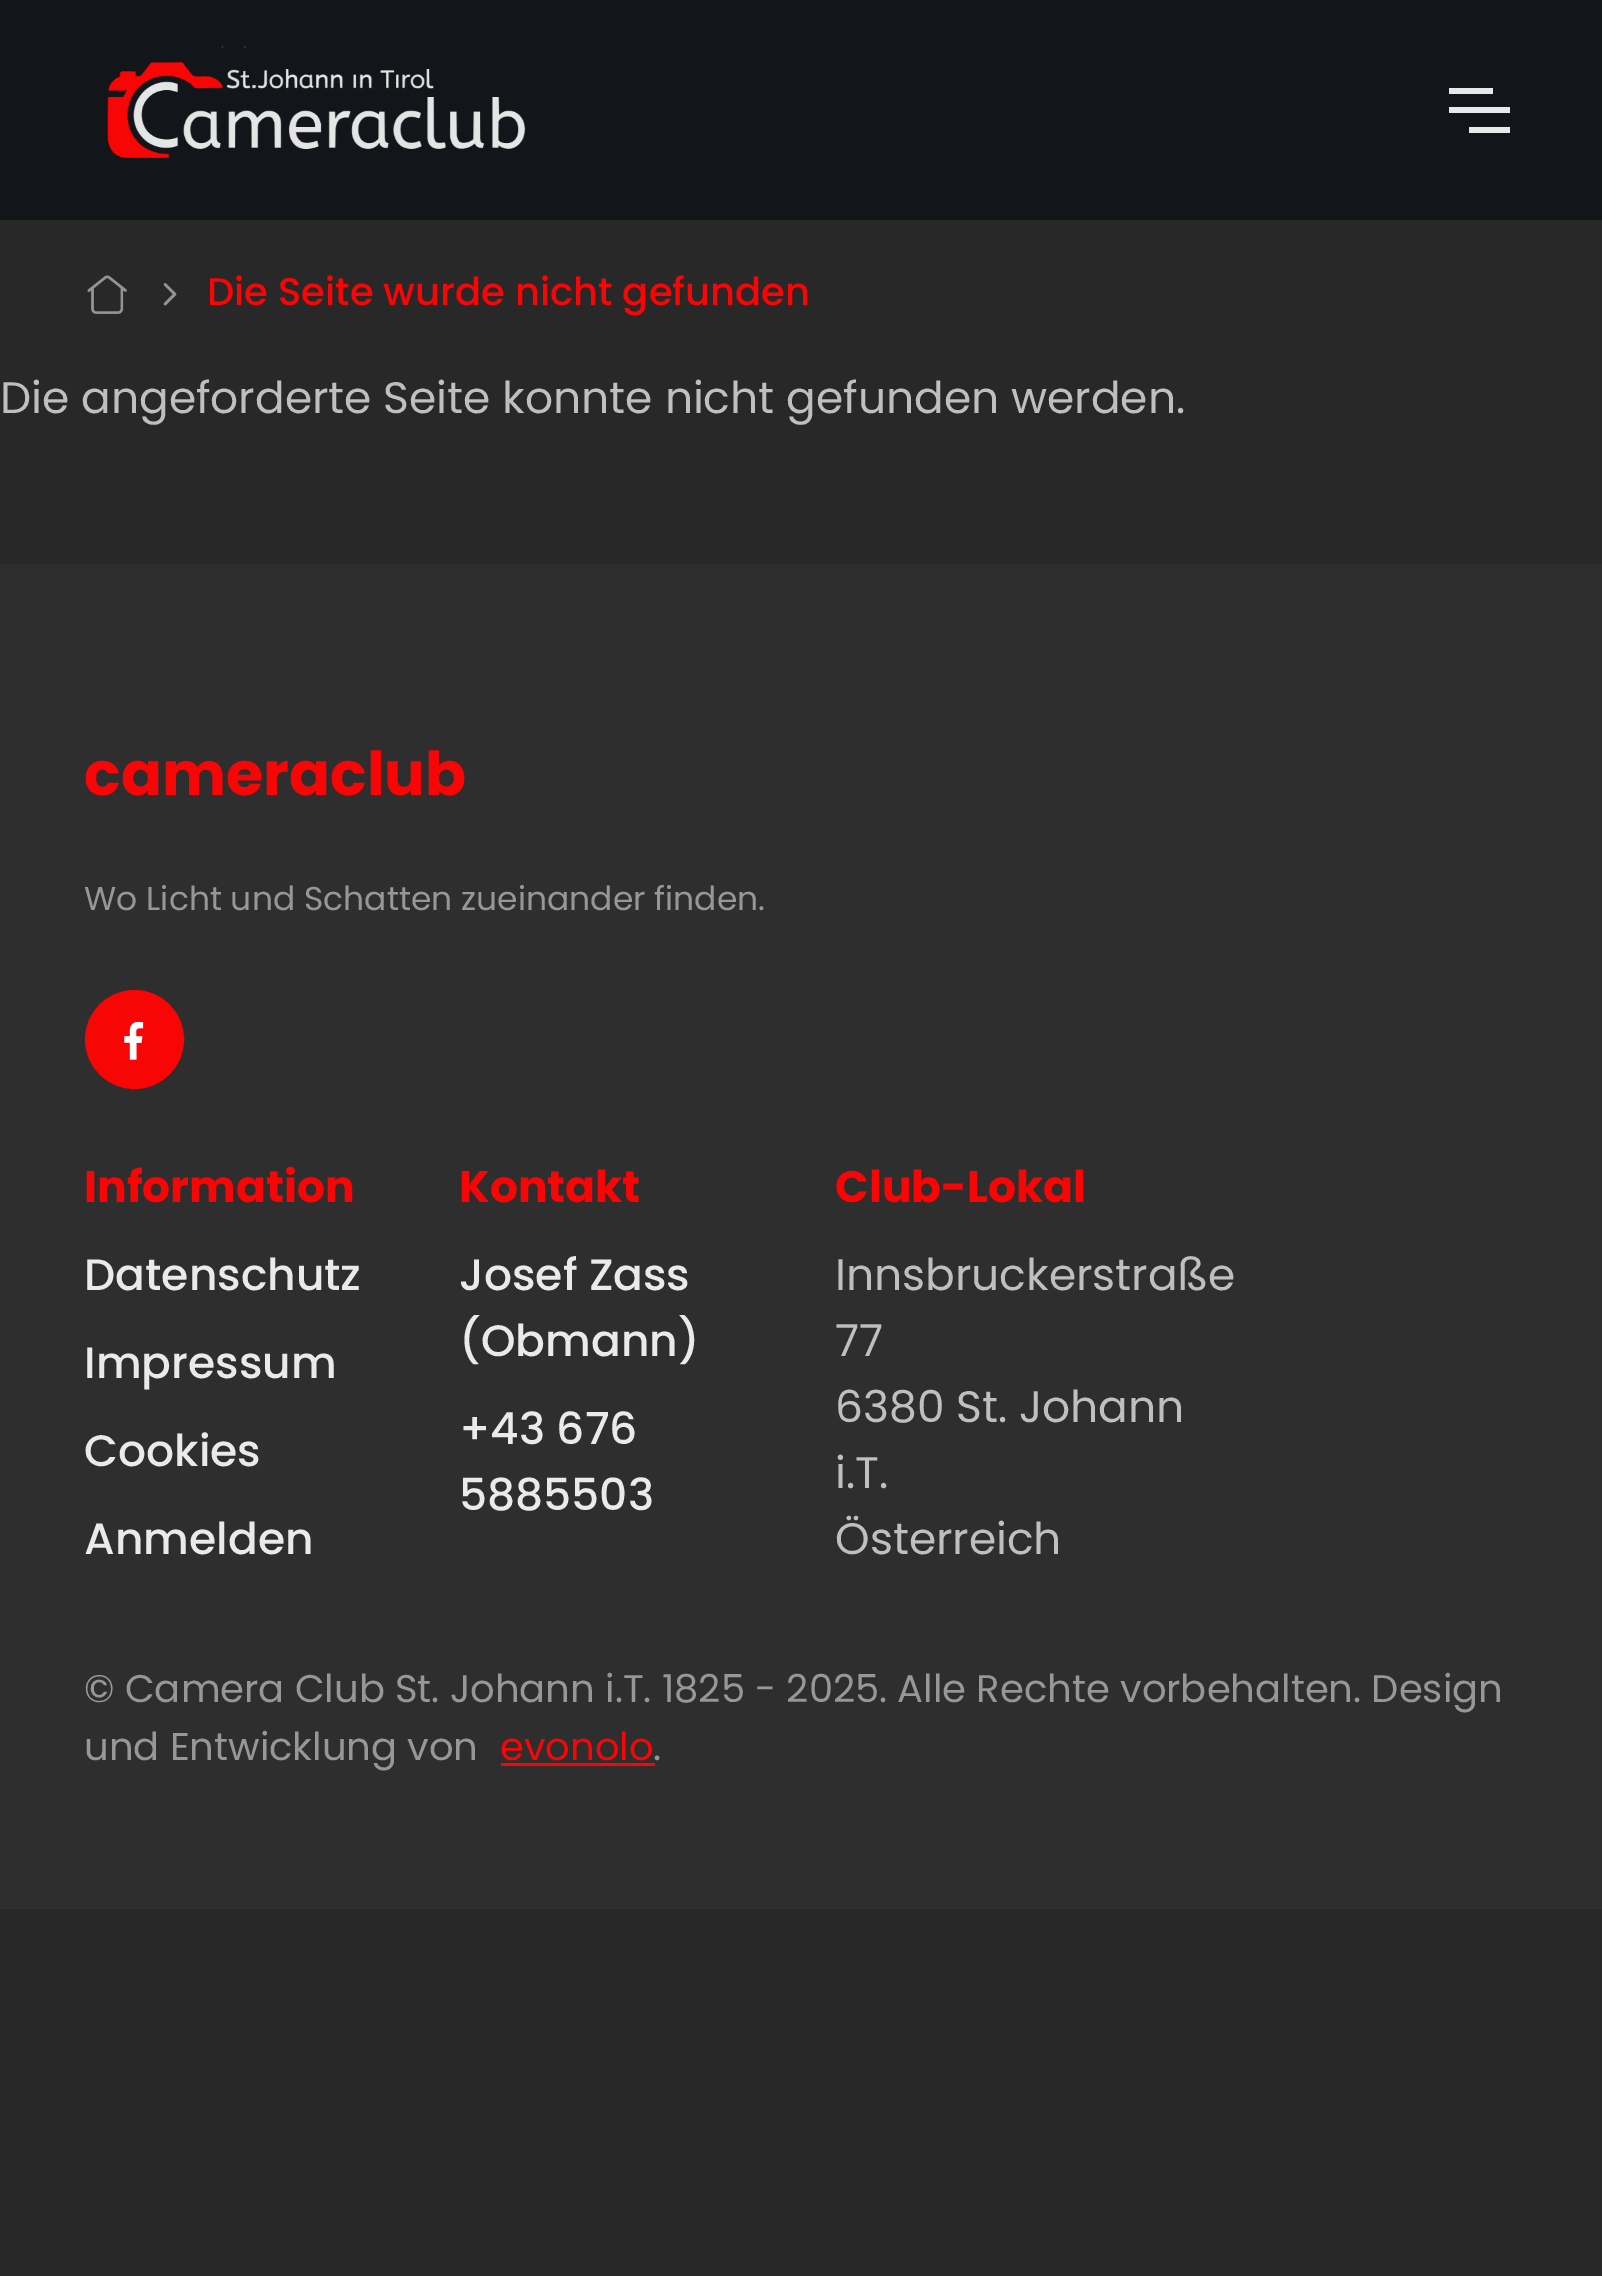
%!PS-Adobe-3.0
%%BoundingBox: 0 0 1602 2276
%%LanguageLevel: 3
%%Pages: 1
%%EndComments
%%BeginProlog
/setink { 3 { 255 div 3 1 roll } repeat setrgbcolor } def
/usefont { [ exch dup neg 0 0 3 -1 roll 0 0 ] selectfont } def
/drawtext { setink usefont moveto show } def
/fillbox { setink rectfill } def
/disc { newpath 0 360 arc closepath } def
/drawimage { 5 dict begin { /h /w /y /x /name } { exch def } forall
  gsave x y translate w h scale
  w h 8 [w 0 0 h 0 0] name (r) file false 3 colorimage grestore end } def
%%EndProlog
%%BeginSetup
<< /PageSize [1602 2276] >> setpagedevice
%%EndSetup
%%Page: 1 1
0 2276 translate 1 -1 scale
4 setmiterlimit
0 0 1602 2276 40 40 40 fillbox
0 0 1602 220 18 21 25 fillbox
(assets/img1.rgb) 107 46 419 113 drawimage
1449 107 61 6 231 232 232 fillbox
1449 88 44 6 231 232 232 fillbox
1469 127 41 6 231 232 232 fillbox
(assets/img2.rgb) 87 275 40 39 drawimage
(assets/img3.rgb) 163 283 14 23 drawimage
(Die Seite wurde nicht gefunden) 207 305 /Poppins-Medium 38.5 248 5 5 drawtext
(Die angeforderte Seite konnte nicht gefunden werden.) 0 413 /Poppins-Regular 44 191 191 191 drawtext
0 564 1602 1345 46 46 46 fillbox
(cameraclub) 84 795 /Poppins-Bold 60.5 248 5 5 drawtext
(Wo Licht und Schatten zueinander finden.) 84 910 /Poppins-Regular 33 151 151 151 drawtext
248 5 5 setink
134.5 1039.5 48 disc gsave fill grestore
3 setlinewidth
stroke
(assets/img4.rgb) 124 1021 20 39 drawimage
(Information) 84 1202 /Poppins-Bold 44 248 5 5 drawtext
(Datenschutz) 84 1290 /Poppins-Medium 44 234 234 234 drawtext
(Impressum) 84 1378 /Poppins-Medium 44 234 234 234 drawtext
(Cookies) 84 1466 /Poppins-Medium 44 234 234 234 drawtext
(Anmelden) 84 1554 /Poppins-Medium 44 234 234 234 drawtext
(Kontakt) 459 1202 /Poppins-Bold 44 248 5 5 drawtext
(Josef Zass) 459 1290 /Poppins-Medium 44 234 234 234 drawtext
(\(Obmann\)) 459 1356 /Poppins-Medium 44 234 234 234 drawtext
(+43 676) 459 1444 /Poppins-Medium 44 234 234 234 drawtext
(5885503) 459 1510 /Poppins-Medium 44 234 234 234 drawtext
(Club-Lokal) 835 1202 /Poppins-Bold 44 248 5 5 drawtext
(Innsbruckerstraße) 835 1290 /Poppins-Regular 44 191 191 191 drawtext
(77) 835 1356 /Poppins-Regular 44 191 191 191 drawtext
(6380 St. Johann) 835 1422 /Poppins-Regular 44 191 191 191 drawtext
(i.T.) 835 1488 /Poppins-Regular 44 191 191 191 drawtext
(Österreich) 835 1554 /Poppins-Regular 44 191 191 191 drawtext
(© Camera Club St. Johann i.T. 1825 - 2025. Alle Rechte vorbehalten. Design) 84 1702 /Poppins-Regular 38.5 151 151 151 drawtext
(und Entwicklung von) 84 1760 /Poppins-Regular 38.5 151 151 151 drawtext
(evonolo) 500 1760 /Poppins-Regular 38.5 248 5 5 drawtext
501 1763 154 3 248 5 5 fillbox
(.) 653 1760 /Poppins-Regular 38.5 151 151 151 drawtext
showpage
%%EOF
